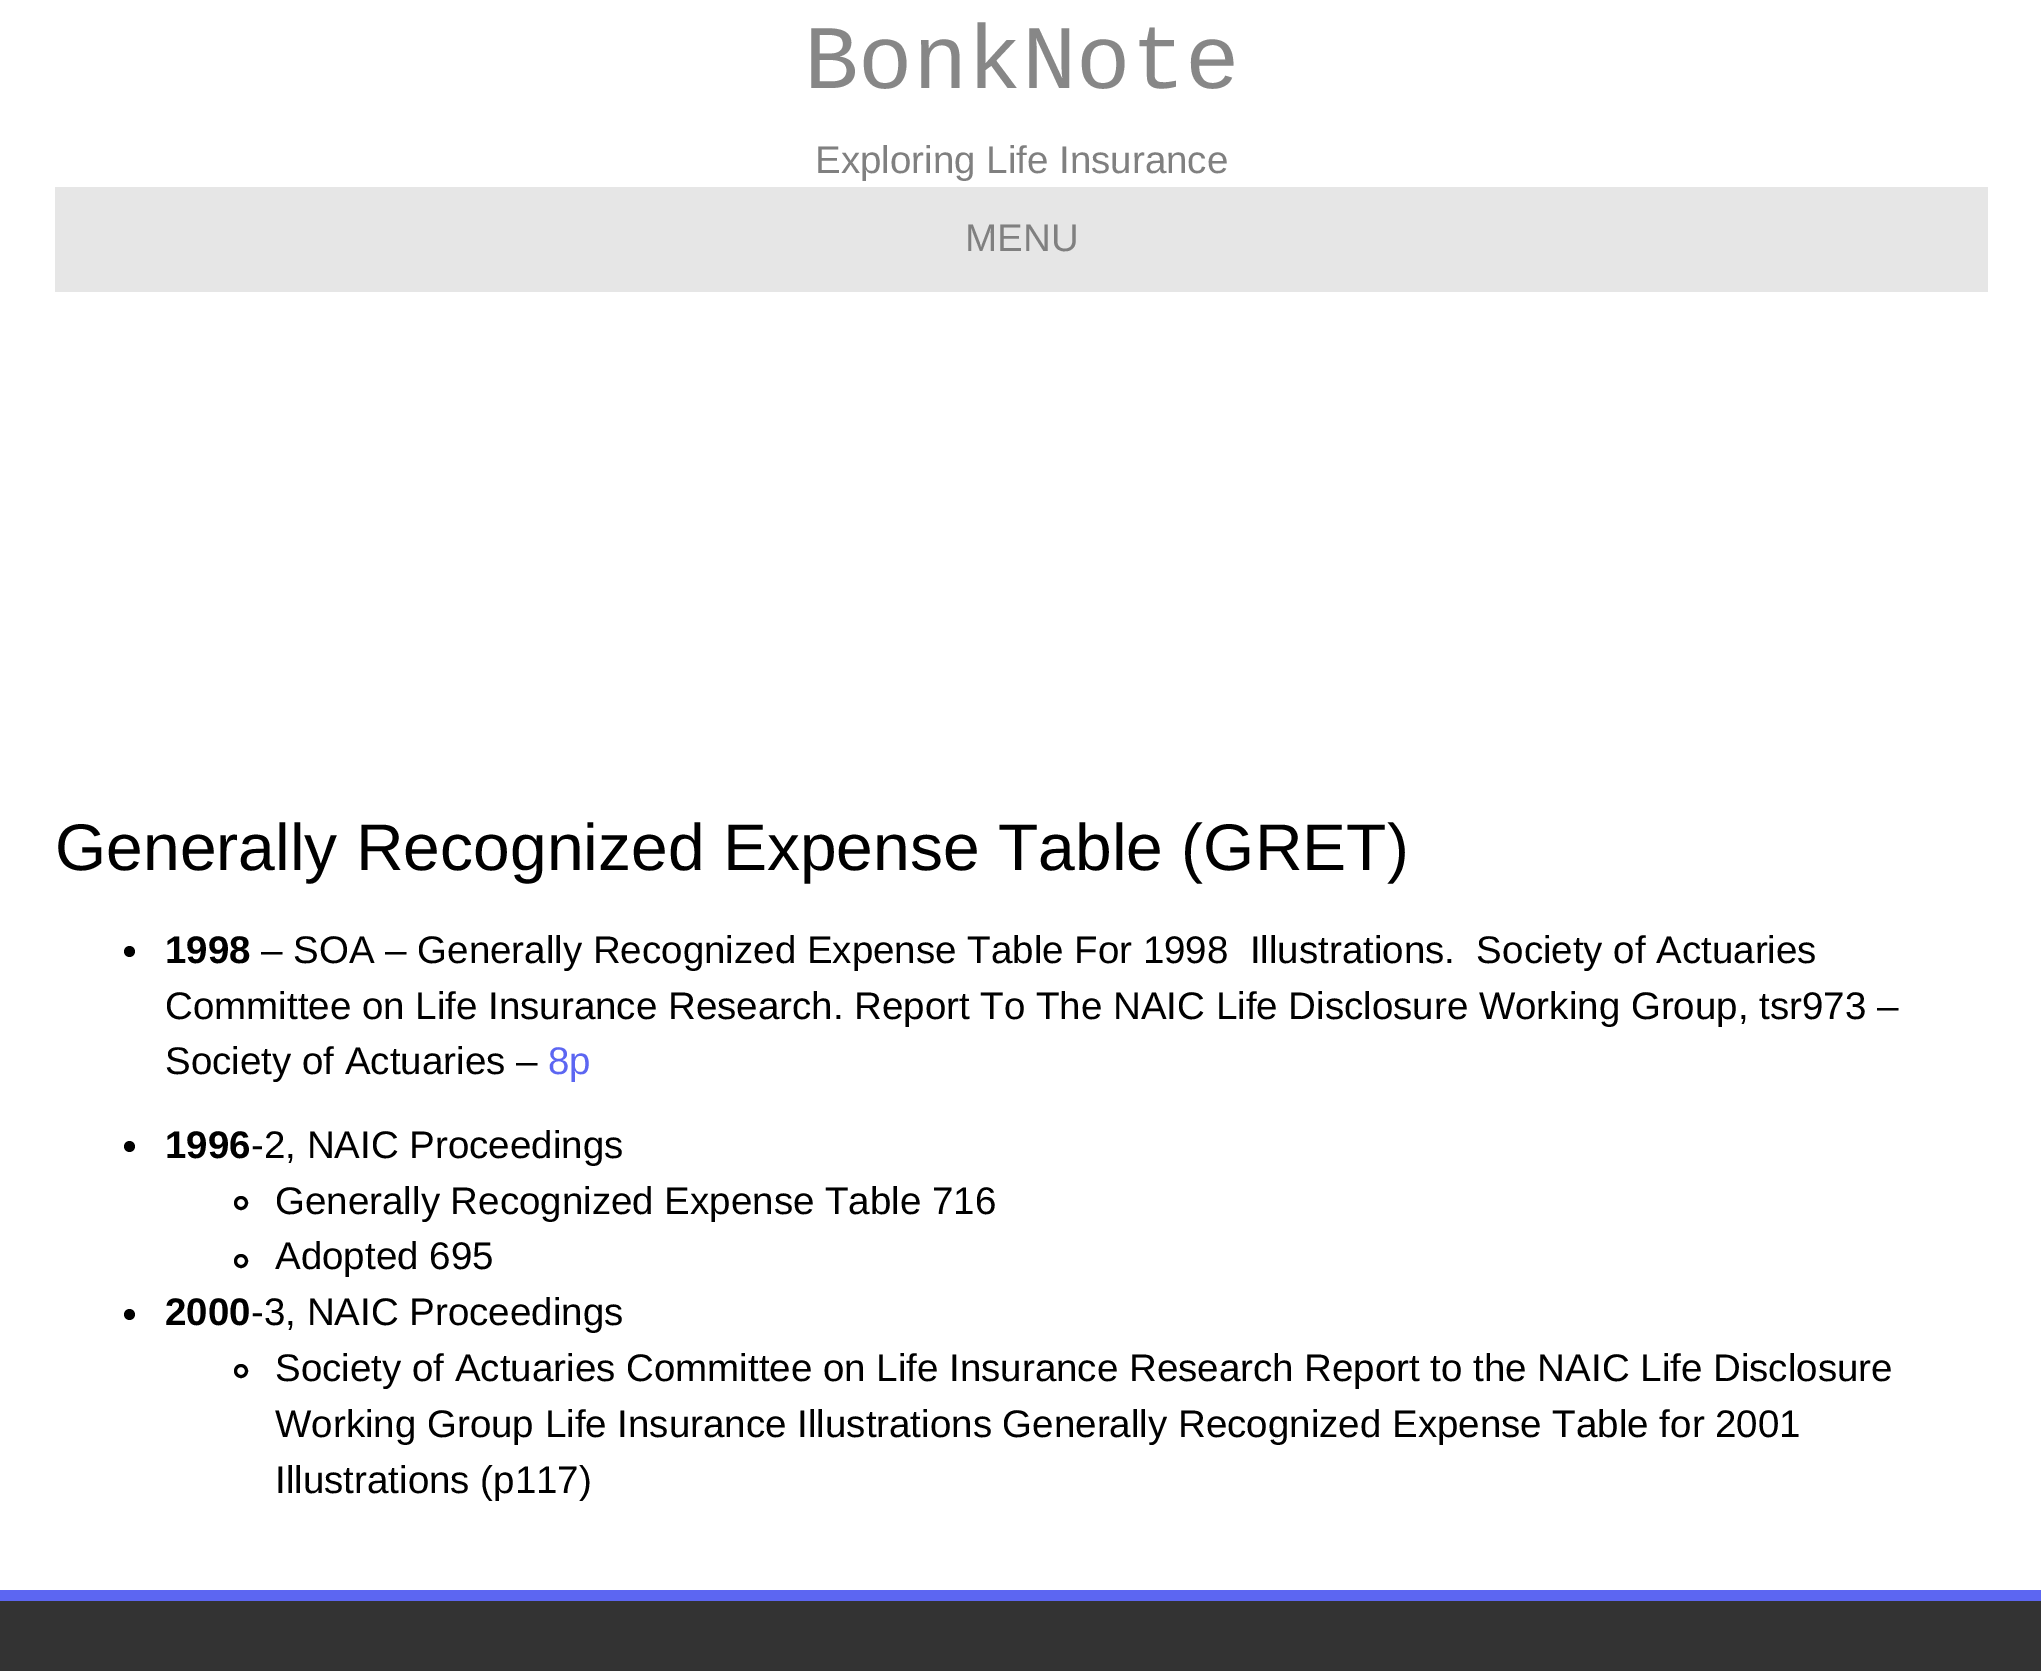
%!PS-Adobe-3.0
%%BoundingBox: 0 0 2041 1671
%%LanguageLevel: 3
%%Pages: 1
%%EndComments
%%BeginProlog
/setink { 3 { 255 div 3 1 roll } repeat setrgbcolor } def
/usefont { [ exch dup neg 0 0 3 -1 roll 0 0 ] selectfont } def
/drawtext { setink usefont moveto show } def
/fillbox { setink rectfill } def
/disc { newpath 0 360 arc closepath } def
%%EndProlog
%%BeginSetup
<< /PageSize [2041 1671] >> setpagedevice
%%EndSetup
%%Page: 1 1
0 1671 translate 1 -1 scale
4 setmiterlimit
0 0 2041 1671 255 255 255 fillbox
(BonkNote) 804 88 /LiberationMono-Regular 90.75 135 135 135 drawtext
(Exploring Life Insurance) 815 173 /LiberationSans-Regular 38.5 128 128 128 drawtext
55 187 1933 105 230 230 230 fillbox
(MENU) 965 251 /LiberationSans-Regular 38.5 128 128 128 drawtext
(Generally Recognized Expense Table \(GRET\)) 55 870 /LiberationSans-Regular 66 0 0 0 drawtext
129.5 951.5 5.5 disc fill
(1998) 165 963 /LiberationSans-Bold 38.5 0 0 0 drawtext
(– SOA – Generally Recognized Expense Table For 1998  Illustrations.  Society of Actuaries) 261 963 /LiberationSans-Regular 38.5 0 0 0 drawtext
(Committee on Life Insurance Research. Report To The NAIC Life Disclosure Working Group, tsr973 –) 165 1019 /LiberationSans-Regular 38.5 0 0 0 drawtext
(Society of Actuaries –) 165 1074 /LiberationSans-Regular 38.5 0 0 0 drawtext
(8p) 548 1074 /LiberationSans-Regular 38.5 92 102 242 drawtext
0 0 0 setink
129.5 1146.5 5.5 disc fill
(1996) 165 1158 /LiberationSans-Bold 38.5 0 0 0 drawtext
(-2, NAIC Proceedings) 251 1158 /LiberationSans-Regular 38.5 0 0 0 drawtext
3 setlinewidth
241 1203 5.5 disc stroke
(Generally Recognized Expense Table 716) 275 1214 /LiberationSans-Regular 38.5 0 0 0 drawtext
241 1261 5.5 disc stroke
(Adopted 695) 275 1269 /LiberationSans-Regular 38.5 0 0 0 drawtext
129.5 1314.5 5.5 disc fill
(2000) 165 1325 /LiberationSans-Bold 38.5 0 0 0 drawtext
(-3, NAIC Proceedings) 251 1325 /LiberationSans-Regular 38.5 0 0 0 drawtext
241 1371 5.5 disc stroke
(Society of Actuaries Committee on Life Insurance Research Report to the NAIC Life Disclosure) 275 1381 /LiberationSans-Regular 38.5 0 0 0 drawtext
(Working Group Life Insurance Illustrations Generally Recognized Expense Table for 2001) 275 1437 /LiberationSans-Regular 38.5 0 0 0 drawtext
(Illustrations \(p117\)) 275 1493 /LiberationSans-Regular 38.5 0 0 0 drawtext
0 1601 2041 70 51 51 51 fillbox
0 1590 2041 11 92 102 242 fillbox
showpage
%%EOF
